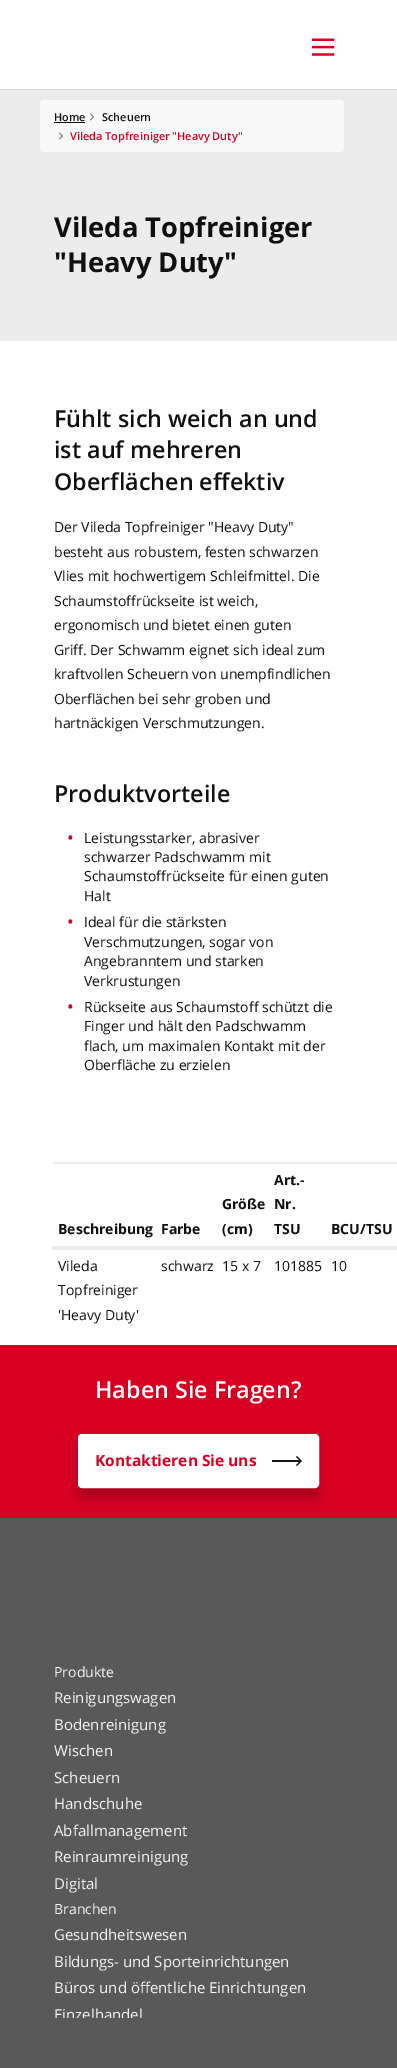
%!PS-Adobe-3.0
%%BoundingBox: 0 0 397 2068
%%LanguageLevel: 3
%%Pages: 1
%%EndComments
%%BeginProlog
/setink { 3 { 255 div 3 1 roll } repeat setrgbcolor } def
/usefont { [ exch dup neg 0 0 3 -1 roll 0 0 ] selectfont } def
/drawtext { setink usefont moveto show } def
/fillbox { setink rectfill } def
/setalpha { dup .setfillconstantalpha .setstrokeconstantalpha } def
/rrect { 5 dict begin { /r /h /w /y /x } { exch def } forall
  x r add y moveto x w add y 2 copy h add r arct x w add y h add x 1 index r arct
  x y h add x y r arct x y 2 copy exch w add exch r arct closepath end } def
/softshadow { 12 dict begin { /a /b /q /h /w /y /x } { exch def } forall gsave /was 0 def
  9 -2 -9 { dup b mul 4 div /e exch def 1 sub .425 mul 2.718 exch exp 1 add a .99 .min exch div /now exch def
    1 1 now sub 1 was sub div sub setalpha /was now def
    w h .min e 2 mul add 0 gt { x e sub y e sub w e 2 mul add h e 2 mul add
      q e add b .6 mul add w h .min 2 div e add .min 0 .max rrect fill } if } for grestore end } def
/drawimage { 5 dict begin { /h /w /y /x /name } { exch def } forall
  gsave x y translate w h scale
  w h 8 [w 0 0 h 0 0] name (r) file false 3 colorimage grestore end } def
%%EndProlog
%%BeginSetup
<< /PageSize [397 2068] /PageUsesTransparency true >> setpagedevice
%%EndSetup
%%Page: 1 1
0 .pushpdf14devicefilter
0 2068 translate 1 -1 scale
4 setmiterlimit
0 0 397 2068 255 255 255 fillbox
0 89 397 1 206 212 218 fillbox
(assets/img1.rgb) 312 38 23 18 drawimage
0 90 397 251 236 236 236 fillbox
249 249 249 setink
40 100 304 52 4 rrect fill
(Home) 54 121 /OpenSans-SemiBold 10.9 16 16 16 drawtext
54 122 31 1 16 16 16 fillbox
(assets/img2.rgb) 90 113 4 8 drawimage
(Scheuern) 102 121 /OpenSans-SemiBold 10.9 16 16 16 drawtext
(assets/img2.rgb) 59 132 4 8 drawimage
(Vileda Topfreiniger "Heavy Duty") 70 140 /OpenSans-SemiBold 10.9 215 0 34 drawtext
(Vileda Topfreiniger) 54 237 /OpenSans-Bold 27.25 16 16 16 drawtext
("Heavy Duty") 54 272 /OpenSans-Bold 27.25 16 16 16 drawtext
(Fühlt sich weich an und) 54 427 /OpenSans-SemiBold 23.3 16 16 16 drawtext
(ist auf mehreren) 54 458 /OpenSans-SemiBold 23.3 16 16 16 drawtext
(Oberflächen effektiv) 54 490 /OpenSans-SemiBold 23.3 16 16 16 drawtext
(Der Vileda Topfreiniger "Heavy Duty") 54 532 /OpenSans-Regular 14 16 16 16 drawtext
(besteht aus robustem, festen schwarzen) 54 557 /OpenSans-Regular 14 16 16 16 drawtext
(Vlies mit hochwertigem Schleifmittel. Die) 54 581 /OpenSans-Regular 14 16 16 16 drawtext
(Schaumstoffrückseite ist weich,) 54 606 /OpenSans-Regular 14 16 16 16 drawtext
(ergonomisch und bietet einen guten) 54 630 /OpenSans-Regular 14 16 16 16 drawtext
(Griff. Der Schwamm eignet sich ideal zum) 54 655 /OpenSans-Regular 14 16 16 16 drawtext
(kraftvollen Scheuern von unempfindlichen) 54 679 /OpenSans-Regular 14 16 16 16 drawtext
(Oberflächen bei sehr groben und) 54 704 /OpenSans-Regular 14 16 16 16 drawtext
(hartnäckigen Verschmutzungen.) 54 728 /OpenSans-Regular 14 16 16 16 drawtext
(Produktvorteile) 54 802 /OpenSans-SemiBold 23.3 16 16 16 drawtext
(•) 67 844 /OpenSans-Regular 18 215 0 34 drawtext
(Leistungsstarker, abrasiver) 84 843 /OpenSans-Regular 14 16 16 16 drawtext
(schwarzer Padschwamm mit) 84 862 /OpenSans-Regular 14 16 16 16 drawtext
(Schaumstoffrückseite für einen guten) 84 881 /OpenSans-Regular 14 16 16 16 drawtext
(Halt) 84 901 /OpenSans-Regular 14 16 16 16 drawtext
(•) 67 928 /OpenSans-Regular 18 215 0 34 drawtext
(Ideal für die stärksten) 84 927 /OpenSans-Regular 14 16 16 16 drawtext
(Verschmutzungen, sogar von) 84 947 /OpenSans-Regular 14 16 16 16 drawtext
(Angebranntem und starken) 84 966 /OpenSans-Regular 14 16 16 16 drawtext
(Verkrustungen) 84 986 /OpenSans-Regular 14 16 16 16 drawtext
(•) 67 1013 /OpenSans-Regular 18 215 0 34 drawtext
(Rückseite aus Schaumstoff schützt die) 84 1012 /OpenSans-Regular 14 16 16 16 drawtext
(Finger und hält den Padschwamm) 84 1031 /OpenSans-Regular 14 16 16 16 drawtext
(flach, um maximalen Kontakt mit der) 84 1051 /OpenSans-Regular 14 16 16 16 drawtext
(Oberfläche zu erzielen) 84 1070 /OpenSans-Regular 14 16 16 16 drawtext
(Beschreibung) 58 1234 /OpenSans-Bold 14 16 16 16 drawtext
(Farbe) 161 1234 /OpenSans-Bold 14 16 16 16 drawtext
(Größe) 222 1209 /OpenSans-Bold 14 16 16 16 drawtext
(\(cm\)) 222 1234 /OpenSans-Bold 14 16 16 16 drawtext
(Art.-) 274 1185 /OpenSans-Bold 14 16 16 16 drawtext
(Nr.) 274 1209 /OpenSans-Bold 14 16 16 16 drawtext
(TSU) 274 1234 /OpenSans-Bold 14 16 16 16 drawtext
53 1162 344 2 233 236 239 fillbox
52 1246 345 4 233 236 239 fillbox
(BCU/TSU) 331 1234 /OpenSans-Bold 14 16 16 16 drawtext
(Vileda) 58 1271 /OpenSans-Regular 14 16 16 16 drawtext
(Topfreiniger) 58 1295 /OpenSans-Regular 14 16 16 16 drawtext
('Heavy Duty') 58 1320 /OpenSans-Regular 14 16 16 16 drawtext
(schwarz) 161 1271 /OpenSans-Regular 14 16 16 16 drawtext
(15 x 7) 222 1271 /OpenSans-Regular 14 16 16 16 drawtext
(101885) 274 1271 /OpenSans-Regular 14 16 16 16 drawtext
(10) 331 1271 /OpenSans-Regular 14 16 16 16 drawtext
0 1345 397 173 215 0 34 fillbox
(Haben Sie Fragen?) 95 1398 /OpenSans-SemiBold 23.3 255 255 255 drawtext
3 9 14 setink
78 1444 241 54 4 5 0.2 softshadow
255 255 255 setink
80 1436 237 50 1.5 rrect fill
2 setlinewidth
79 1435 239 52 3 rrect stroke
(Kontaktieren Sie uns) 95 1466 /OpenSans-Bold 15.5 215 0 34 drawtext
21 21 21 setink
297 1456 moveto 296 1457 lineto 299 1460 lineto 272 1460 lineto 272 1462 lineto 299 1462 lineto 296 1465 lineto 297 1466 lineto 302 1461 lineto closepath fill
0 1518 397 500 89 89 89 fillbox
(Produkte) 54 1677 /OpenSans-Regular 14 243 242 241 drawtext
(Reinigungswagen) 54 1703 /OpenSans-Regular 15 243 242 241 drawtext
(Bodenreinigung) 54 1730 /OpenSans-Regular 15 243 242 241 drawtext
(Wischen) 54 1756 /OpenSans-Regular 15 243 242 241 drawtext
(Scheuern) 54 1783 /OpenSans-Regular 15 243 242 241 drawtext
(Handschuhe) 54 1809 /OpenSans-Regular 15 243 242 241 drawtext
(Abfallmanagement) 54 1836 /OpenSans-Regular 15 243 242 241 drawtext
(Reinraumreinigung) 54 1862 /OpenSans-Regular 15 243 242 241 drawtext
(Digital) 54 1889 /OpenSans-Regular 15 243 242 241 drawtext
(Branchen) 54 1914 /OpenSans-Regular 14 243 242 241 drawtext
(Gesundheitswesen) 54 1940 /OpenSans-Regular 15 243 242 241 drawtext
(Bildungs- und Sporteinrichtungen) 54 1967 /OpenSans-Regular 15 243 242 241 drawtext
(Büros und öffentliche Einrichtungen) 54 1993 /OpenSans-Regular 15 243 242 241 drawtext
(Einzelhandel) 54 2020 /OpenSans-Regular 15 243 242 241 drawtext
0 2018 397 50 89 89 89 fillbox
.poppdf14devicefilter showpage
%%EOF
